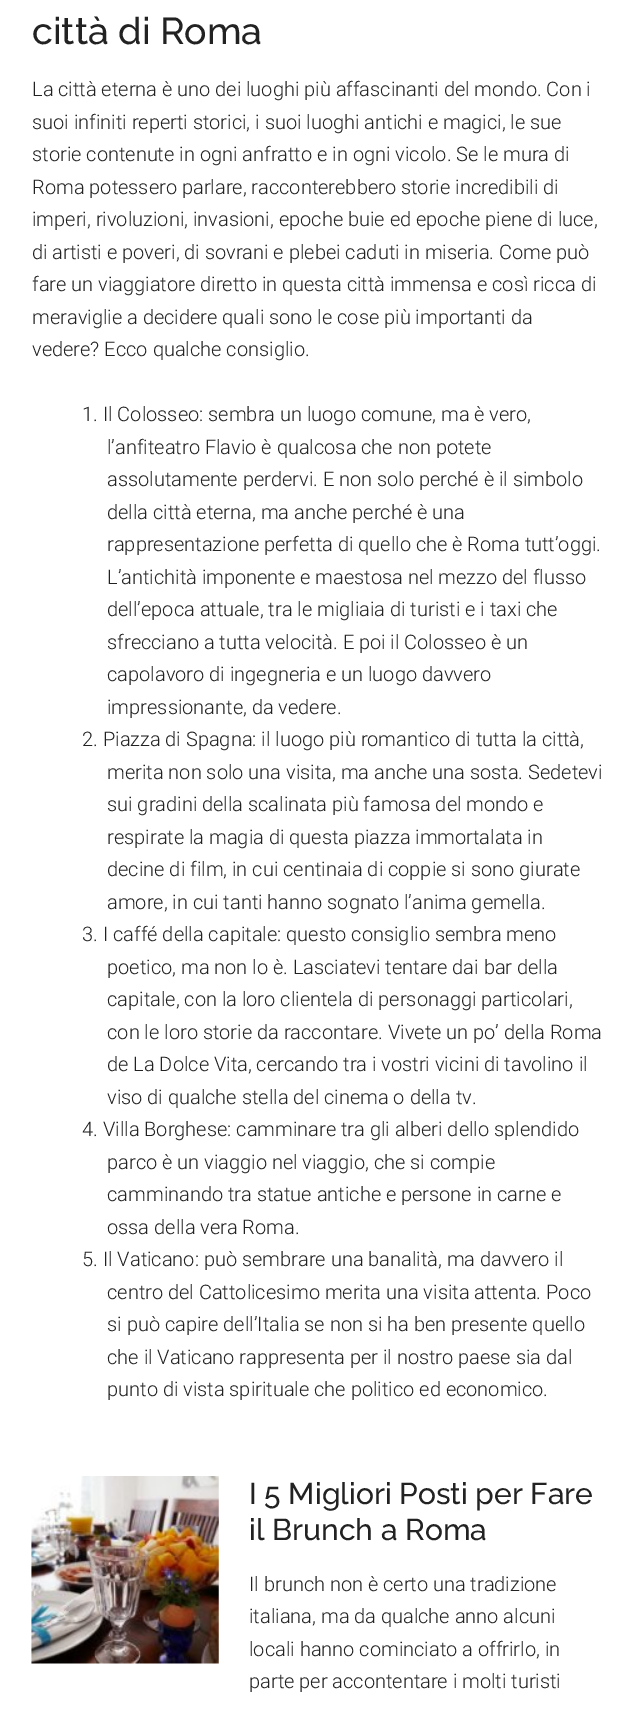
%!PS-Adobe-3.0
%%BoundingBox: 0 0 636 1716
%%LanguageLevel: 3
%%Pages: 1
%%EndComments
%%BeginProlog
/setink { 3 { 255 div 3 1 roll } repeat setrgbcolor } def
/usefont { [ exch dup neg 0 0 3 -1 roll 0 0 ] selectfont } def
/drawtext { setink usefont moveto show } def
/fillbox { setink rectfill } def
/drawimage { 5 dict begin { /h /w /y /x /name } { exch def } forall
  gsave x y translate w h scale
  w h 8 [w 0 0 h 0 0] name (r) file false 3 colorimage grestore end } def
%%EndProlog
%%BeginSetup
<< /PageSize [636 1716] >> setpagedevice
%%EndSetup
%%Page: 1 1
0 1716 translate 1 -1 scale
4 setmiterlimit
0 0 636 1716 255 255 255 fillbox
(città di Roma) 32 44 /Raleway-Medium 37.5 34 34 34 drawtext
(La città eterna è uno dei luoghi più affascinanti del mondo. Con i) 32 96 /Roboto-Light 20 34 34 34 drawtext
(suoi infiniti reperti storici, i suoi luoghi antichi e magici, le sue) 32 129 /Roboto-Light 20 34 34 34 drawtext
(storie contenute in ogni anfratto e in ogni vicolo. Se le mura di) 32 161 /Roboto-Light 20 34 34 34 drawtext
(Roma potessero parlare, racconterebbero storie incredibili di) 32 194 /Roboto-Light 20 34 34 34 drawtext
(imperi, rivoluzioni, invasioni, epoche buie ed epoche piene di luce,) 32 226 /Roboto-Light 20 34 34 34 drawtext
(di artisti e poveri, di sovrani e plebei caduti in miseria. Come può) 32 259 /Roboto-Light 20 34 34 34 drawtext
(fare un viaggiatore diretto in questa città immensa e così ricca di) 32 291 /Roboto-Light 20 34 34 34 drawtext
(meraviglie a decidere quali sono le cose più importanti da) 32 324 /Roboto-Light 20 34 34 34 drawtext
(vedere? Ecco qualche consiglio.) 32 356 /Roboto-Light 20 34 34 34 drawtext
(1. Il Colosseo: sembra un luogo comune, ma è vero,) 82 421 /Roboto-Light 20 34 34 34 drawtext
(l’anfiteatro Flavio è qualcosa che non potete) 107 454 /Roboto-Light 20 34 34 34 drawtext
(assolutamente perdervi. E non solo perché è il simbolo) 107 486 /Roboto-Light 20 34 34 34 drawtext
(della città eterna, ma anche perché è una) 107 519 /Roboto-Light 20 34 34 34 drawtext
(rappresentazione perfetta di quello che è Roma tutt’oggi.) 107 551 /Roboto-Light 20 34 34 34 drawtext
(L’antichità imponente e maestosa nel mezzo del flusso) 107 584 /Roboto-Light 20 34 34 34 drawtext
(dell’epoca attuale, tra le migliaia di turisti e i taxi che) 107 616 /Roboto-Light 20 34 34 34 drawtext
(sfrecciano a tutta velocità. E poi il Colosseo è un) 107 649 /Roboto-Light 20 34 34 34 drawtext
(capolavoro di ingegneria e un luogo davvero) 107 681 /Roboto-Light 20 34 34 34 drawtext
(impressionante, da vedere.) 107 714 /Roboto-Light 20 34 34 34 drawtext
(2. Piazza di Spagna: il luogo più romantico di tutta la città,) 82 746 /Roboto-Light 20 34 34 34 drawtext
(merita non solo una visita, ma anche una sosta. Sedetevi) 107 779 /Roboto-Light 20 34 34 34 drawtext
(sui gradini della scalinata più famosa del mondo e) 107 811 /Roboto-Light 20 34 34 34 drawtext
(respirate la magia di questa piazza immortalata in) 107 844 /Roboto-Light 20 34 34 34 drawtext
(decine di film, in cui centinaia di coppie si sono giurate) 107 876 /Roboto-Light 20 34 34 34 drawtext
(amore, in cui tanti hanno sognato l’anima gemella.) 107 909 /Roboto-Light 20 34 34 34 drawtext
(3. I caffé della capitale: questo consiglio sembra meno) 82 941 /Roboto-Light 20 34 34 34 drawtext
(poetico, ma non lo è. Lasciatevi tentare dai bar della) 107 974 /Roboto-Light 20 34 34 34 drawtext
(capitale, con la loro clientela di personaggi particolari,) 107 1006 /Roboto-Light 20 34 34 34 drawtext
(con le loro storie da raccontare. Vivete un po’ della Roma) 107 1039 /Roboto-Light 20 34 34 34 drawtext
(de La Dolce Vita, cercando tra i vostri vicini di tavolino il) 107 1071 /Roboto-Light 20 34 34 34 drawtext
(viso di qualche stella del cinema o della tv.) 107 1104 /Roboto-Light 20 34 34 34 drawtext
(4. Villa Borghese: camminare tra gli alberi dello splendido) 82 1136 /Roboto-Light 20 34 34 34 drawtext
(parco è un viaggio nel viaggio, che si compie) 107 1169 /Roboto-Light 20 34 34 34 drawtext
(camminando tra statue antiche e persone in carne e) 107 1201 /Roboto-Light 20 34 34 34 drawtext
(ossa della vera Roma.) 107 1234 /Roboto-Light 20 34 34 34 drawtext
(5. Il Vaticano: può sembrare una banalità, ma davvero il) 82 1266 /Roboto-Light 20 34 34 34 drawtext
(centro del Cattolicesimo merita una visita attenta. Poco) 107 1299 /Roboto-Light 20 34 34 34 drawtext
(si può capire dell’Italia se non si ha ben presente quello) 107 1331 /Roboto-Light 20 34 34 34 drawtext
(che il Vaticano rappresenta per il nostro paese sia dal) 107 1364 /Roboto-Light 20 34 34 34 drawtext
(punto di vista spirituale che politico ed economico.) 107 1396 /Roboto-Light 20 34 34 34 drawtext
(assets/img1.rgb) 31 1476 188 188 drawimage
(I 5 Migliori Posti per Fare) 249 1504 /Raleway-Medium 30 34 34 34 drawtext
(il Brunch a Roma) 249 1540 /Raleway-Medium 30 34 34 34 drawtext
(Il brunch non è certo una tradizione) 249 1591 /Roboto-Light 20 34 34 34 drawtext
(italiana, ma da qualche anno alcuni) 249 1623 /Roboto-Light 20 34 34 34 drawtext
(locali hanno cominciato a offrirlo, in) 249 1656 /Roboto-Light 20 34 34 34 drawtext
(parte per accontentare i molti turisti) 249 1688 /Roboto-Light 20 34 34 34 drawtext
showpage
%%EOF
